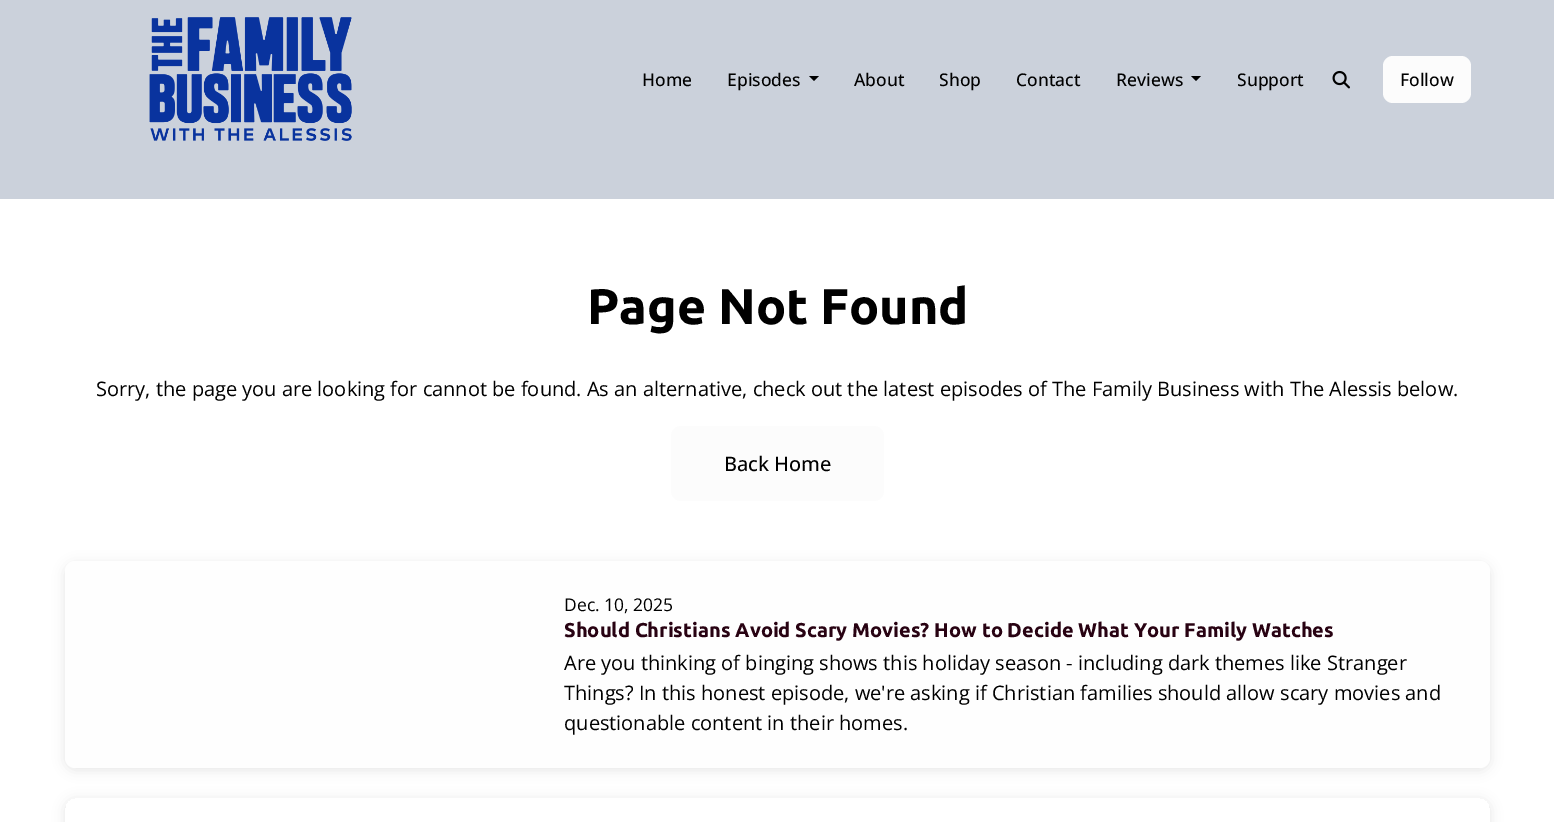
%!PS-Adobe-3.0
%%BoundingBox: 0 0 1554 822
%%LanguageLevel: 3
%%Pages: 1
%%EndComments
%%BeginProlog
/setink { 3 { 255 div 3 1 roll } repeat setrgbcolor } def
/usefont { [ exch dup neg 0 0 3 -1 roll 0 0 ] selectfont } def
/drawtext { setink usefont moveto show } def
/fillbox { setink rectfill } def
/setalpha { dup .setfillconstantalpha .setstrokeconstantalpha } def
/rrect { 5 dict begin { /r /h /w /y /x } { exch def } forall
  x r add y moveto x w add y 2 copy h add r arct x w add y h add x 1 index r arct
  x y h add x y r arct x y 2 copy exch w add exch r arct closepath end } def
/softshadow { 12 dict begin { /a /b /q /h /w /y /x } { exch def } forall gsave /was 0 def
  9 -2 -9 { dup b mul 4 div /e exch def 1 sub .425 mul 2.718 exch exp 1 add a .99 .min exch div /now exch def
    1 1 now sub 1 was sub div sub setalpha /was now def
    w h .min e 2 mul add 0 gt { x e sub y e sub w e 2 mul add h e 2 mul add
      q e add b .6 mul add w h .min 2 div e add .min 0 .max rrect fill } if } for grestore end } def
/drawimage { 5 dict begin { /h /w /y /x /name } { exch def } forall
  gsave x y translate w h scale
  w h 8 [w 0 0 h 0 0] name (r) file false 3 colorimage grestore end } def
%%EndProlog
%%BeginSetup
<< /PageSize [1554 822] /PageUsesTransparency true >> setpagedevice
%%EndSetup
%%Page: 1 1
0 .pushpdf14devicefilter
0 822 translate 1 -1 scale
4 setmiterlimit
0 0 1554 822 255 255 255 fillbox
0 0 1554 199 203 209 219 fillbox
(assets/img1.rgb) 149 17 203 124 drawimage
(Home) 642 86 /OpenSans-Medium 17.5 0 0 0 drawtext
(Episodes) 727 86 /OpenSans-Medium 17.5 0 0 0 drawtext
809 76 moveto 819 76 lineto 814 81 lineto closepath fill
(About) 854 86 /OpenSans-Medium 17.5 0 0 0 drawtext
(Shop) 939 86 /OpenSans-Medium 17.5 0 0 0 drawtext
(Contact) 1016 86 /OpenSans-Medium 17.5 0 0 0 drawtext
(Reviews) 1116 86 /OpenSans-Medium 17.5 0 0 0 drawtext
1191 76 moveto 1201 76 lineto 1196 81 lineto closepath fill
(Support) 1237 86 /OpenSans-Medium 17.5 0 0 0 drawtext
(assets/img2.rgb) 1332 70 18 19 drawimage
252 252 252 setink
1383 56 88 47 10 rrect fill
(Follow) 1400 86 /OpenSans-Medium 17.5 0 0 0 drawtext
(Page Not Found) 587 324 /Ubuntu-Bold 50 0 0 0 drawtext
(Sorry, the page you are looking for cannot be found. As an alternative, check out the latest episodes of The Family Business with The Alessis below.) 96 396 /OpenSans-Regular 20 0 0 0 drawtext
252 252 252 setink
671 426 213 75 10 rrect fill
(Back Home) 724 471 /OpenSans-Medium 20 0 0 0 drawtext
65 564 1425 206 10 6 0.1 softshadow
254 254 254 setink
65 561 1425 207 10 rrect fill
(Dec. 10, 2025) 564 611 /OpenSans-Regular 17.5 0 0 0 drawtext
(Should Christians Avoid Scary Movies? How to Decide What Your Family Watches) 564 637 /Ubuntu-Bold 20 40 2 18 drawtext
(Are you thinking of binging shows this holiday season - including dark themes like Stranger) 564 670 /OpenSans-Regular 20 0 0 0 drawtext
(Things? In this honest episode, we're asking if Christian families should allow scary movies and) 564 700 /OpenSans-Regular 20 0 0 0 drawtext
(questionable content in their homes.) 564 730 /OpenSans-Regular 20 0 0 0 drawtext
gsave
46 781 moveto 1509 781 lineto 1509 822 lineto 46 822 lineto closepath 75 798 moveto 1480 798 lineto 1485.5 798 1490 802.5 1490 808 curveto 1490 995 lineto 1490 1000.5 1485.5 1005 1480 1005 curveto 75 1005 lineto 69.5 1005 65 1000.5 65 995 curveto 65 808 lineto 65 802.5 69.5 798 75 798 curveto closepath eoclip newpath
65 800 1425 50 10 6 0.1 softshadow
grestore
.poppdf14devicefilter showpage
%%EOF
